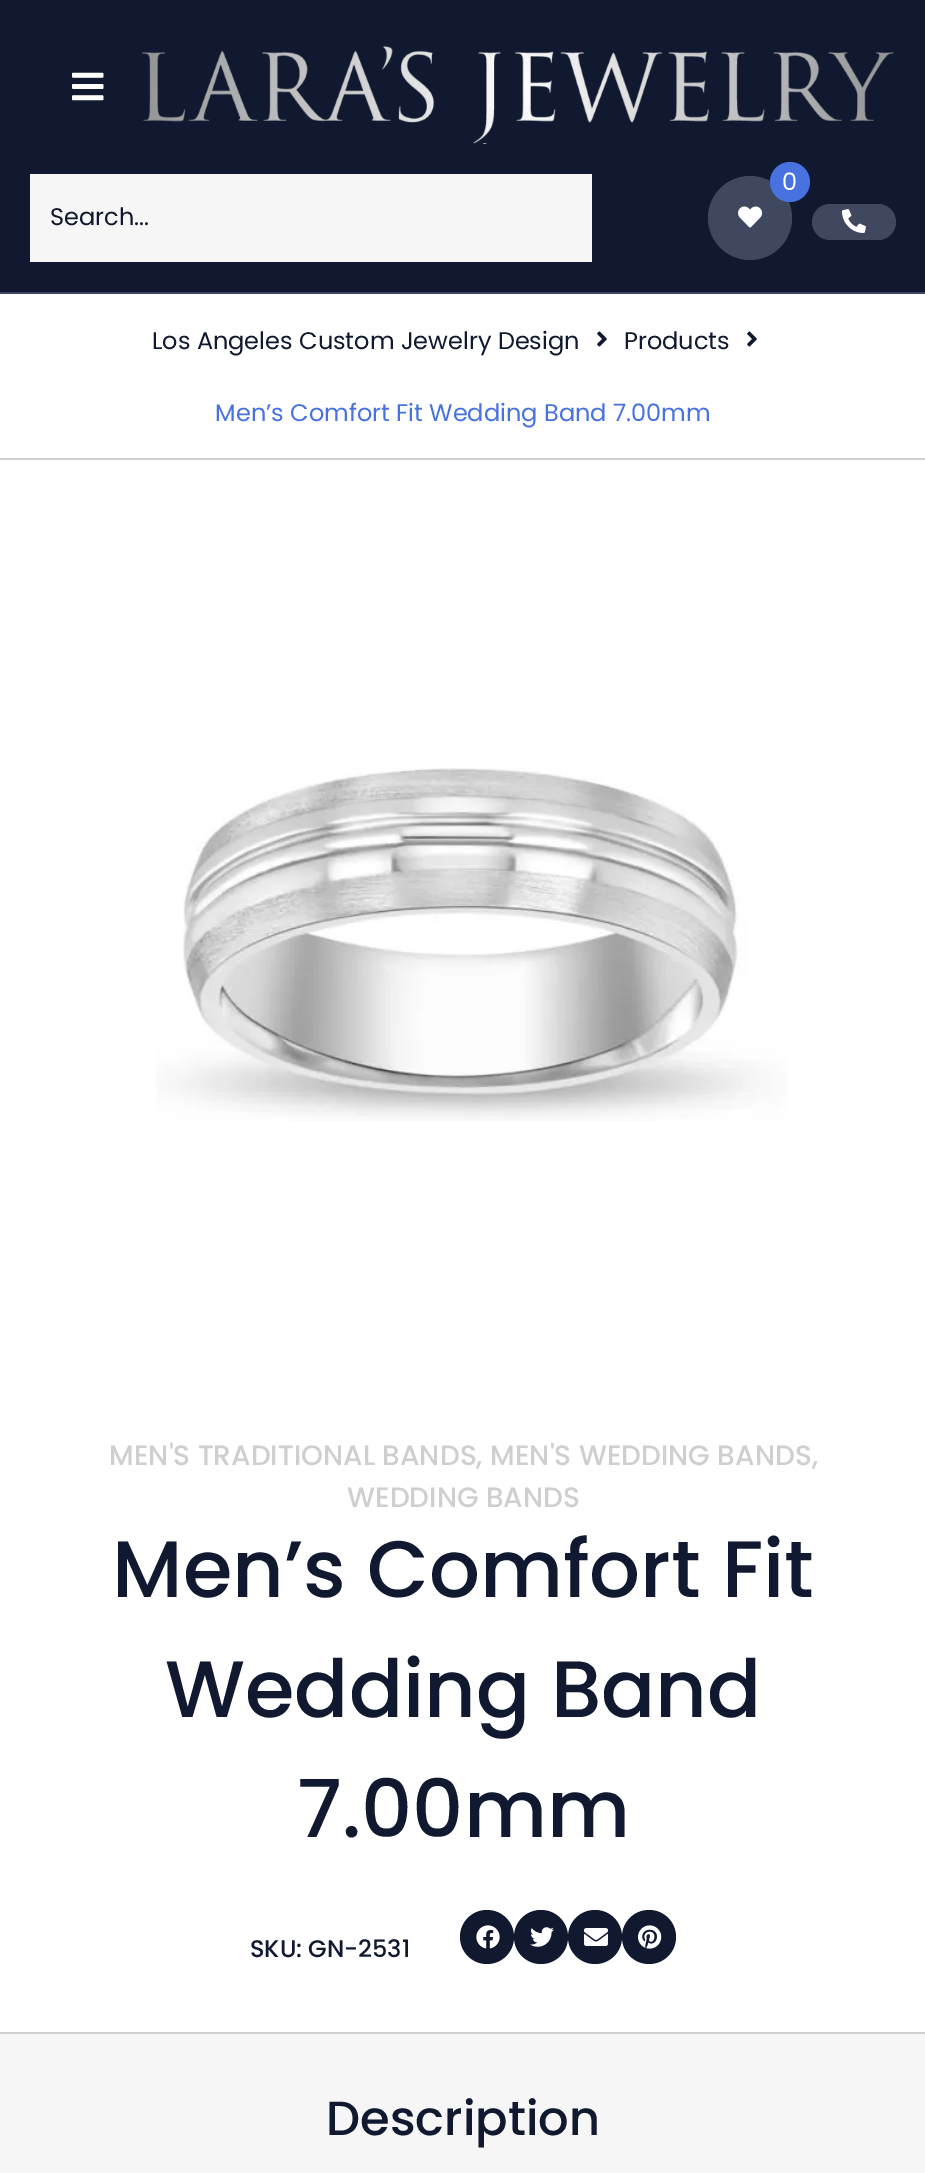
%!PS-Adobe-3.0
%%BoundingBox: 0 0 925 2173
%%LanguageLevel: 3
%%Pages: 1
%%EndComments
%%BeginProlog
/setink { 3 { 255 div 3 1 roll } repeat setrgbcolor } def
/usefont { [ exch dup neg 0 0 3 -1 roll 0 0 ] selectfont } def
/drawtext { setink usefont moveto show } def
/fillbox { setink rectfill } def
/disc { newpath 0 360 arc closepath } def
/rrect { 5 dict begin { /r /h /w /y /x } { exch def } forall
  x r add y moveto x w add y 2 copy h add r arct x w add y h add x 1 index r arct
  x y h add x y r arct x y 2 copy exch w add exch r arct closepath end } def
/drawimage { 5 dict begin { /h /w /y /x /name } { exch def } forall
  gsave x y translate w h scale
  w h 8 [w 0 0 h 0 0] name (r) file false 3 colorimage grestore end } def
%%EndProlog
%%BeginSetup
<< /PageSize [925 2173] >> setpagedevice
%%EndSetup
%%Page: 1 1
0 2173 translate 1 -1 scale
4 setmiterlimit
0 0 925 2173 255 255 255 fillbox
0 0 925 292 16 25 47 fillbox
0 292 925 2 63 72 95 fillbox
(assets/img1.rgb) 72 72 32 29 drawimage
(assets/img2.rgb) 142 46 752 98 drawimage
750 218 42 disc fill
71 114 224 setink
790 182 20 disc fill
(0) 782 190 /Poppins-Regular 24 255 255 255 drawtext
(assets/img3.rgb) 738 206 24 22 drawimage
63 72 95 setink
812 204 84 36 18 rrect fill
(assets/img4.rgb) 842 209 24 24 drawimage
30 174 562 88 246 246 246 fillbox
(Search...) 50 225 /Poppins-Regular 24 16 25 47 drawtext
0 458 925 2 207 207 207 fillbox
(Los Angeles Custom Jewelry Design) 152 349 /Poppins-Regular 24 16 25 47 drawtext
(assets/img5.rgb) 597 331 10 16 drawimage
(Products) 624 349 /Poppins-Regular 24 16 25 47 drawtext
(assets/img5.rgb) 747 331 10 16 drawimage
(Men’s Comfort Fit Wedding Band 7.00mm) 215 421 /Poppins-Regular 24 71 114 224 drawtext
(assets/img6.rgb) 156 768 631 353 drawimage
(MEN'S TRADITIONAL BANDS, MEN'S WEDDING BANDS,) 109 1465 /Poppins-Medium 28 207 207 207 drawtext
(WEDDING BANDS) 347 1507 /Poppins-Medium 28 207 207 207 drawtext
(Men’s Comfort Fit) 112 1597 /Poppins-Medium 80 16 25 47 drawtext
(Wedding Band) 165 1717 /Poppins-Medium 80 16 25 47 drawtext
(7.00mm) 297 1837 /Poppins-Medium 80 16 25 47 drawtext
(SKU: GN-2531) 250 1957 /Poppins-Medium 24 16 25 47 drawtext
487 1937 27 disc fill
(assets/img7.rgb) 476 1925 24 24 drawimage
541 1937 27 disc fill
(assets/img8.rgb) 530 1927 24 20 drawimage
595 1937 27 disc fill
(assets/img9.rgb) 584 1928 24 18 drawimage
649 1937 27 disc fill
(assets/img10.rgb) 638 1925 24 24 drawimage
0 2034 925 139 246 246 246 fillbox
0 2032 925 2 207 207 207 fillbox
(Description) 326 2135 /Poppins-Medium 48 16 25 47 drawtext
showpage
%%EOF
